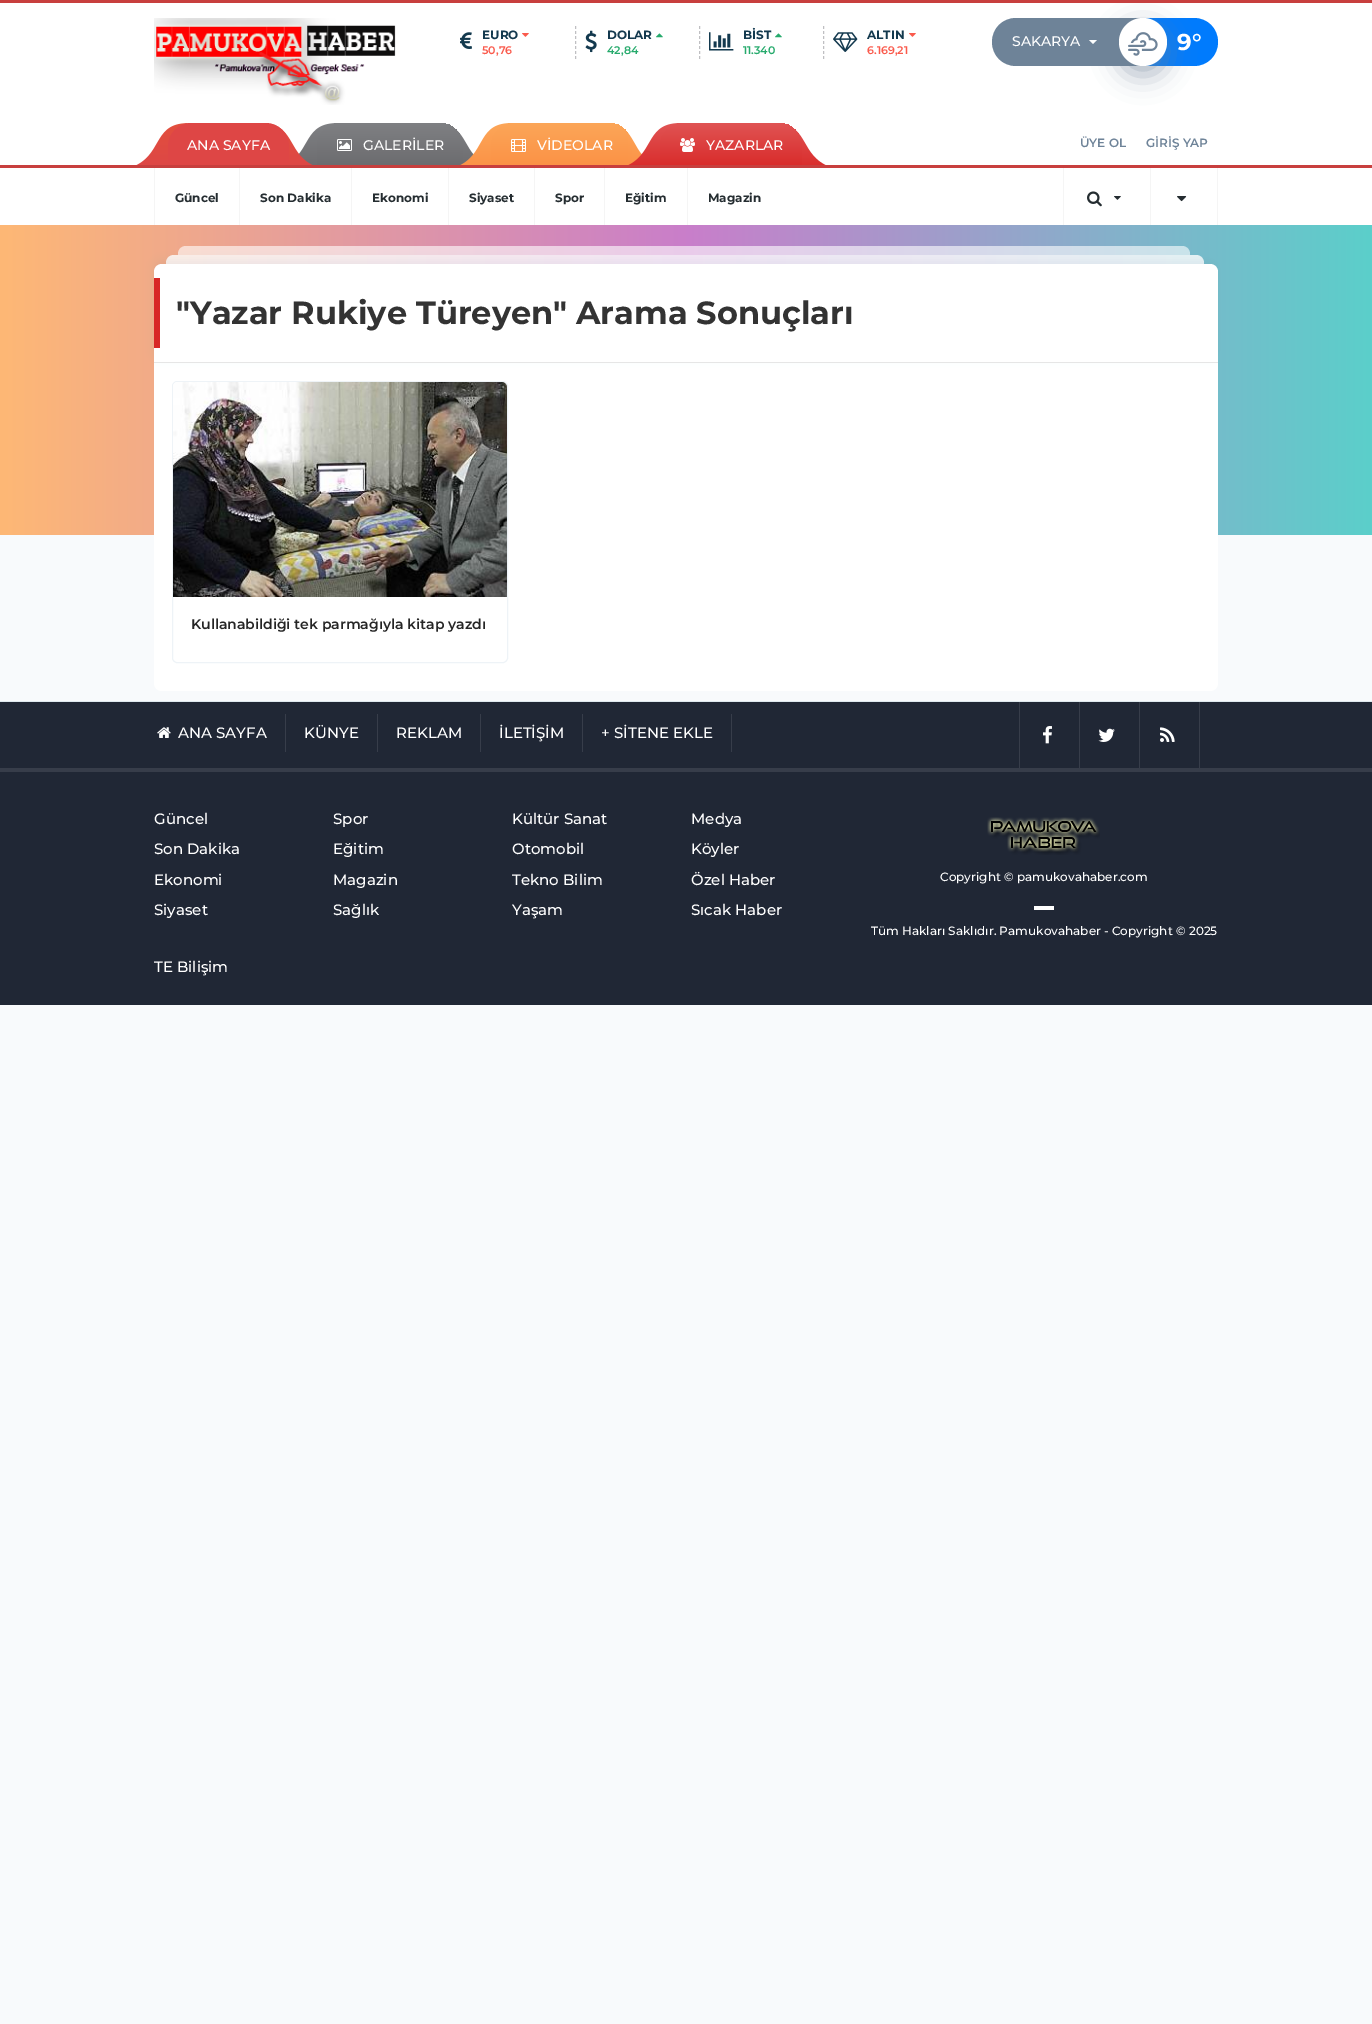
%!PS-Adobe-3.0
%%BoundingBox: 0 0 1372 2024
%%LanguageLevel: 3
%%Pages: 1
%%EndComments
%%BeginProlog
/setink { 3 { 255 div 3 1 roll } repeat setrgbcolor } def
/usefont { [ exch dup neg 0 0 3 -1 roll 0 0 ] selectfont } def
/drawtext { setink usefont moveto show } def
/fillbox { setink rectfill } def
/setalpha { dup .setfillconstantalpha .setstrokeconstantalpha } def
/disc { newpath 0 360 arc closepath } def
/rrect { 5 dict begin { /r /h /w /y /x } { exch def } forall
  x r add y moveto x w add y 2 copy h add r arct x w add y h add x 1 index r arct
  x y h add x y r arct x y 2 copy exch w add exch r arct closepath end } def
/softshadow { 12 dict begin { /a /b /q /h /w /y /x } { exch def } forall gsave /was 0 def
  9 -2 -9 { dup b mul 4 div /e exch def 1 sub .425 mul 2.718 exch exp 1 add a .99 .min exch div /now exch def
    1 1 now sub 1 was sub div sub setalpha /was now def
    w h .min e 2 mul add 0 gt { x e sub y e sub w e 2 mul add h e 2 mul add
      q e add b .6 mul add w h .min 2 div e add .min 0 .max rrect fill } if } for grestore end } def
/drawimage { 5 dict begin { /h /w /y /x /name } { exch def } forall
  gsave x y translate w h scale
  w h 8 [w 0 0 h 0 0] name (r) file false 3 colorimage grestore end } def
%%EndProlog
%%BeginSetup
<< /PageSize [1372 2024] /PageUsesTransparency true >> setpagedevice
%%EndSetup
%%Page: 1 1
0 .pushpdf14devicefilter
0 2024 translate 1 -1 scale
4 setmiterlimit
0 0 1372 2024 248 250 252 fillbox
0 3 1372 162 255 255 255 fillbox
0 0 1372 3 200 63 62 fillbox
(assets/img1.rgb) 154 18 242 87 drawimage
(assets/img2.rgb) 460 32 12 17 drawimage
(EURO) 482 39 /Montserrat-Bold 12 19 57 78 drawtext
(assets/img3.rgb) 522 33 7 4 drawimage
(50,76) 482 54 /Montserrat-SemiBold 11 250 90 76 drawtext
191 191 194 setink
[3 2] 0 setdash
575.5 26 moveto 575.5 59 lineto stroke
(assets/img4.rgb) 585 30 12 23 drawimage
(DOLAR) 607 39 /Montserrat-Bold 12 19 57 78 drawtext
(assets/img5.rgb) 656 33 7 5 drawimage
(42,84) 607 54 /Montserrat-SemiBold 11 38 170 108 drawtext
191 191 194 setink
699.5 26 moveto 699.5 59 lineto stroke
(assets/img6.rgb) 709 32 25 19 drawimage
(BİST) 743 39 /Montserrat-Bold 12 19 57 78 drawtext
(assets/img5.rgb) 775 33 7 5 drawimage
(11.340) 743 54 /Montserrat-SemiBold 11 38 170 108 drawtext
191 191 194 setink
823.5 26 moveto 823.5 59 lineto stroke
(assets/img7.rgb) 833 32 25 20 drawimage
(ALTIN) 867 39 /Montserrat-Bold 12 19 57 78 drawtext
(assets/img3.rgb) 909 33 7 4 drawimage
(6.169,21) 867 54 /Montserrat-SemiBold 11 250 90 76 drawtext
1119 18 24 48 110 131 152 fillbox
1143 18 24 48 0 123 253 fillbox
110 131 152 setink
1016 18 moveto 1119 18 lineto 1119 66 lineto 1016 66 lineto 1002.5 66 992 55.5 992 42 curveto 992 28.5 1002.5 18 1016 18 curveto closepath fill
255 255 255 setink
1089 40 moveto 1097 40 lineto 1093 44 lineto closepath fill
0 123 253 setink
1167 18 moveto 1194 18 lineto 1207.5 18 1218 28.5 1218 42 curveto 1218 55.5 1207.5 66 1194 66 curveto 1167 66 lineto closepath fill
110 131 152 setink
1119 27 48 48 24 13.5 0.6 softshadow
255 255 255 setink
1143 42 24 disc fill
(assets/img8.rgb) 1128 32 30 24 drawimage
(SAKARYA) 1012 46 /Montserrat-Medium 14 255 255 255 drawtext
(9) 1177 50 /Montserrat-Bold 23 255 255 255 drawtext
(°) 1192 50 /Montserrat-SemiBold 23 255 255 255 drawtext
(assets/img9.rgb) 136 123 54 42 drawimage
(assets/img11.rgb) 298 123 41 42 drawimage
(assets/img10.rgb) 267 123 46 42 drawimage
222 70 69 setink
191 123 moveto 266 123 lineto 278.5 123 289 133.5 289 146 curveto 289 165 lineto 168 165 lineto 168 146 lineto 168 133.5 178.5 123 191 123 curveto closepath fill
(ANA SAYFA) 187 150 /Montserrat-Medium 14 255 255 255 drawtext
(assets/img13.rgb) 441 123 33 41 drawimage
gsave 340 123 moveto 440 123 lineto 452.5 123 463 133.5 463 146 curveto 463 165 lineto 317 165 lineto 317 146 lineto 317 133.5 327.5 123 340 123 curveto closepath clip newpath
<< /ShadingType 2 /ColorSpace /DeviceRGB /Coords [390 123 390 165] /Extend [true true] /Function << /FunctionType 2 /Domain [0 1] /C0 [0.498 0.502 0.514] /C1 [0.424 0.424 0.435] /N 1 >> >> shfill grestore
(assets/img12.rgb) 337 139 15 12 drawimage
(GALERİLER) 363 150 /Montserrat-Medium 14 255 255 255 drawtext
(assets/img14.rgb) 460 123 53 42 drawimage
(assets/img16.rgb) 610 123 32 40 drawimage
gsave 514 123 moveto 609 123 lineto 621.5 123 632 133.5 632 146 curveto 632 165 lineto 491 165 lineto 491 146 lineto 491 133.5 501.5 123 514 123 curveto closepath clip newpath
<< /ShadingType 2 /ColorSpace /DeviceRGB /Coords [562 123 562 165] /Extend [true true] /Function << /FunctionType 2 /Domain [0 1] /C0 [0.988 0.651 0.345] /C1 [0.984 0.573 0.275] /N 1 >> >> shfill grestore
(assets/img15.rgb) 511 139 15 13 drawimage
(VİDEOLAR) 537 150 /Montserrat-Medium 14 255 255 255 drawtext
(assets/img17.rgb) 628 123 54 42 drawimage
(assets/img19.rgb) 780 123 46 42 drawimage
gsave 683 123 moveto 779 123 lineto 791.5 123 802 133.5 802 146 curveto 802 165 lineto 660 165 lineto 660 146 lineto 660 133.5 670.5 123 683 123 curveto closepath clip newpath
<< /ShadingType 2 /ColorSpace /DeviceRGB /Coords [731 123 731 165] /Extend [true true] /Function << /FunctionType 2 /Domain [0 1] /C0 [0.878 0.329 0.329] /C1 [0.851 0.173 0.169] /N 1 >> >> shfill grestore
(assets/img18.rgb) 680 138 15 14 drawimage
(YAZARLAR) 706 150 /Montserrat-Medium 14 255 255 255 drawtext
(ÜYE OL) 1080 147 /Montserrat-SemiBold 12 110 131 152 drawtext
(GİRİŞ YAP) 1146 147 /Montserrat-SemiBold 12 110 131 152 drawtext
0 168 1372 57 255 255 255 fillbox
0 165 1372 3 200 63 62 fillbox
1217 168 1 57 245 245 245 fillbox
154 168 1 57 245 245 245 fillbox
(Güncel) 175 202 /Montserrat-Bold 12 37 45 49 drawtext
239 168 1 57 245 245 245 fillbox
(Son Dakika) 260 202 /Montserrat-Bold 12 37 45 49 drawtext
351 168 1 57 245 245 245 fillbox
(Ekonomi) 372 202 /Montserrat-Bold 12 37 45 49 drawtext
448 168 1 57 245 245 245 fillbox
(Siyaset) 469 202 /Montserrat-Bold 12 37 45 49 drawtext
534 168 1 57 245 245 245 fillbox
(Spor) 555 202 /Montserrat-Bold 12 37 45 49 drawtext
604 168 1 57 245 245 245 fillbox
(Eğitim) 625 202 /Montserrat-Bold 12 37 45 49 drawtext
687 168 1 57 245 245 245 fillbox
(Magazin) 708 202 /Montserrat-Bold 12 37 45 49 drawtext
1063 168 1 57 245 245 245 fillbox
(assets/img20.rgb) 1087 191 15 16 drawimage
(assets/img21.rgb) 1114 196 7 4 drawimage
1150 168 1 57 245 245 245 fillbox
(assets/img22.rgb) 1177 196 10 6 drawimage
gsave 0 225 moveto 1372 225 lineto 1372 235 lineto 0 235 lineto closepath clip newpath
<< /ShadingType 2 /ColorSpace /DeviceRGB /Coords [0 235 1372 235] /Extend [true true] /Function << /FunctionType 3 /Domain [0 1] /Functions [<< /FunctionType 2 /Domain [0 1] /C0 [0.996 0.722 0.459] /C1 [0.788 0.494 0.792] /N 1 >> << /FunctionType 2 /Domain [0 1] /C0 [0.788 0.494 0.792] /C1 [0.357 0.812 0.796] /N 1 >>] /Bounds [0.5] /Encode [0 1 0 1] >> >> shfill grestore
gsave 0 235 moveto 1372 235 lineto 1372 535 lineto 0 535 lineto closepath clip newpath
<< /ShadingType 2 /ColorSpace /DeviceRGB /Coords [0 385 1372 385] /Extend [true true] /Function << /FunctionType 3 /Domain [0 1] /Functions [<< /FunctionType 2 /Domain [0 1] /C0 [0.996 0.722 0.459] /C1 [0.788 0.494 0.792] /N 1 >> << /FunctionType 2 /Domain [0 1] /C0 [0.788 0.494 0.792] /C1 [0.357 0.812 0.796] /N 1 >>] /Bounds [0.5] /Encode [0 1 0 1] >> >> shfill grestore
0.6 setalpha
255 255 255 setink
186 246 moveto 1182 246 lineto 1186.5 246 1190 249.5 1190 254 curveto 1190 255 lineto 178 255 lineto 178 254 lineto 178 249.5 181.5 246 186 246 curveto closepath fill
0.8 setalpha
174 255 moveto 1196 255 lineto 1200.5 255 1204 258.5 1204 263 curveto 1204 264 lineto 166 264 lineto 166 263 lineto 166 258.5 169.5 255 174 255 curveto closepath fill
1 setalpha
154 363 moveto 1218 363 lineto 1218 683 lineto 1218 687.5 1214.5 691 1210 691 curveto 162 691 lineto 157.5 691 154 687.5 154 683 curveto closepath fill
110 131 152 setink
154 260 1064 99 8 4 0.08 softshadow
255 255 255 setink
162 264 moveto 1210 264 lineto 1214.5 264 1218 267.5 1218 272 curveto 1218 363 lineto 154 363 lineto 154 272 lineto 154 267.5 157.5 264 162 264 curveto closepath fill
154 362 1064 1 230 230 230 fillbox
154 278 6 70 216 39 38 fillbox
("Yazar Rukiye Türeyen" Arama Sonuçları) 176 324 /Montserrat-Bold 32 51 51 51 drawtext
238 243 247 setink
[] 0 setdash
172.5 381.5 335 281 4.5 rrect stroke
(assets/img23.rgb) 173 382 334 215 drawimage
(Kullanabildiği tek parmağıyla kitap yazdı) 191 629 /Montserrat-SemiBold 14 37 37 37 drawtext
0 702 1372 66 32 39 53 fillbox
0 701 1372 1 223 233 238 fillbox
0 768 1372 4 55 61 74 fillbox
285 714 1 38 55 61 74 fillbox
(assets/img24.rgb) 157 727 14 11 drawimage
(ANA SAYFA) 178 738 /Montserrat-Medium 15 255 255 255 drawtext
377 714 1 38 55 61 74 fillbox
(KÜNYE) 304 738 /Montserrat-Medium 15 255 255 255 drawtext
480 714 1 38 55 61 74 fillbox
(REKLAM) 396 738 /Montserrat-Medium 15 255 255 255 drawtext
582 714 1 38 55 61 74 fillbox
(İLETİŞİM) 499 738 /Montserrat-Medium 15 255 255 255 drawtext
731 714 1 38 55 61 74 fillbox
(+ SİTENE EKLE) 601 738 /Montserrat-Medium 15 255 255 255 drawtext
1019 702 1 66 55 61 74 fillbox
1079 702 1 66 55 61 74 fillbox
(assets/img25.rgb) 1043 726 9 18 drawimage
1139 702 1 66 55 61 74 fillbox
(assets/img26.rgb) 1098 728 17 14 drawimage
1199 702 1 66 55 61 74 fillbox
(assets/img27.rgb) 1160 727 15 15 drawimage
0 772 1372 233 32 39 53 fillbox
(Güncel) 154 824 /Montserrat-Medium 15 255 255 255 drawtext
(Son Dakika) 154 854 /Montserrat-Medium 15 255 255 255 drawtext
(Ekonomi) 154 885 /Montserrat-Medium 15 255 255 255 drawtext
(Siyaset) 154 915 /Montserrat-Medium 15 255 255 255 drawtext
(Spor) 333 824 /Montserrat-Medium 15 255 255 255 drawtext
(Eğitim) 333 854 /Montserrat-Medium 15 255 255 255 drawtext
(Magazin) 333 885 /Montserrat-Medium 15 255 255 255 drawtext
(Sağlık) 333 915 /Montserrat-Medium 15 255 255 255 drawtext
(Kültür Sanat) 512 824 /Montserrat-Medium 15 255 255 255 drawtext
(Otomobil) 512 854 /Montserrat-Medium 15 255 255 255 drawtext
(Tekno Bilim) 512 885 /Montserrat-Medium 15 255 255 255 drawtext
(Yaşam) 512 915 /Montserrat-Medium 15 255 255 255 drawtext
(Medya) 691 824 /Montserrat-Medium 15 255 255 255 drawtext
(Köyler) 691 854 /Montserrat-Medium 15 255 255 255 drawtext
(Özel Haber) 691 885 /Montserrat-Medium 15 255 255 255 drawtext
(Sıcak Haber) 691 915 /Montserrat-Medium 15 255 255 255 drawtext
(assets/img28.rgb) 987 817 113 38 drawimage
(Copyright © pamukovahaber.com) 940 881 /Montserrat-Medium 12 255 255 255 drawtext
1034 906 20 4 255 255 255 fillbox
(Tüm Hakları Saklıdır. Pamukovahaber - Copyright © 2025) 871 935 /Montserrat-Medium 12 255 255 255 drawtext
(TE Bilişim) 154 972 /Montserrat-Medium 15 255 255 255 drawtext
.poppdf14devicefilter showpage
%%EOF
